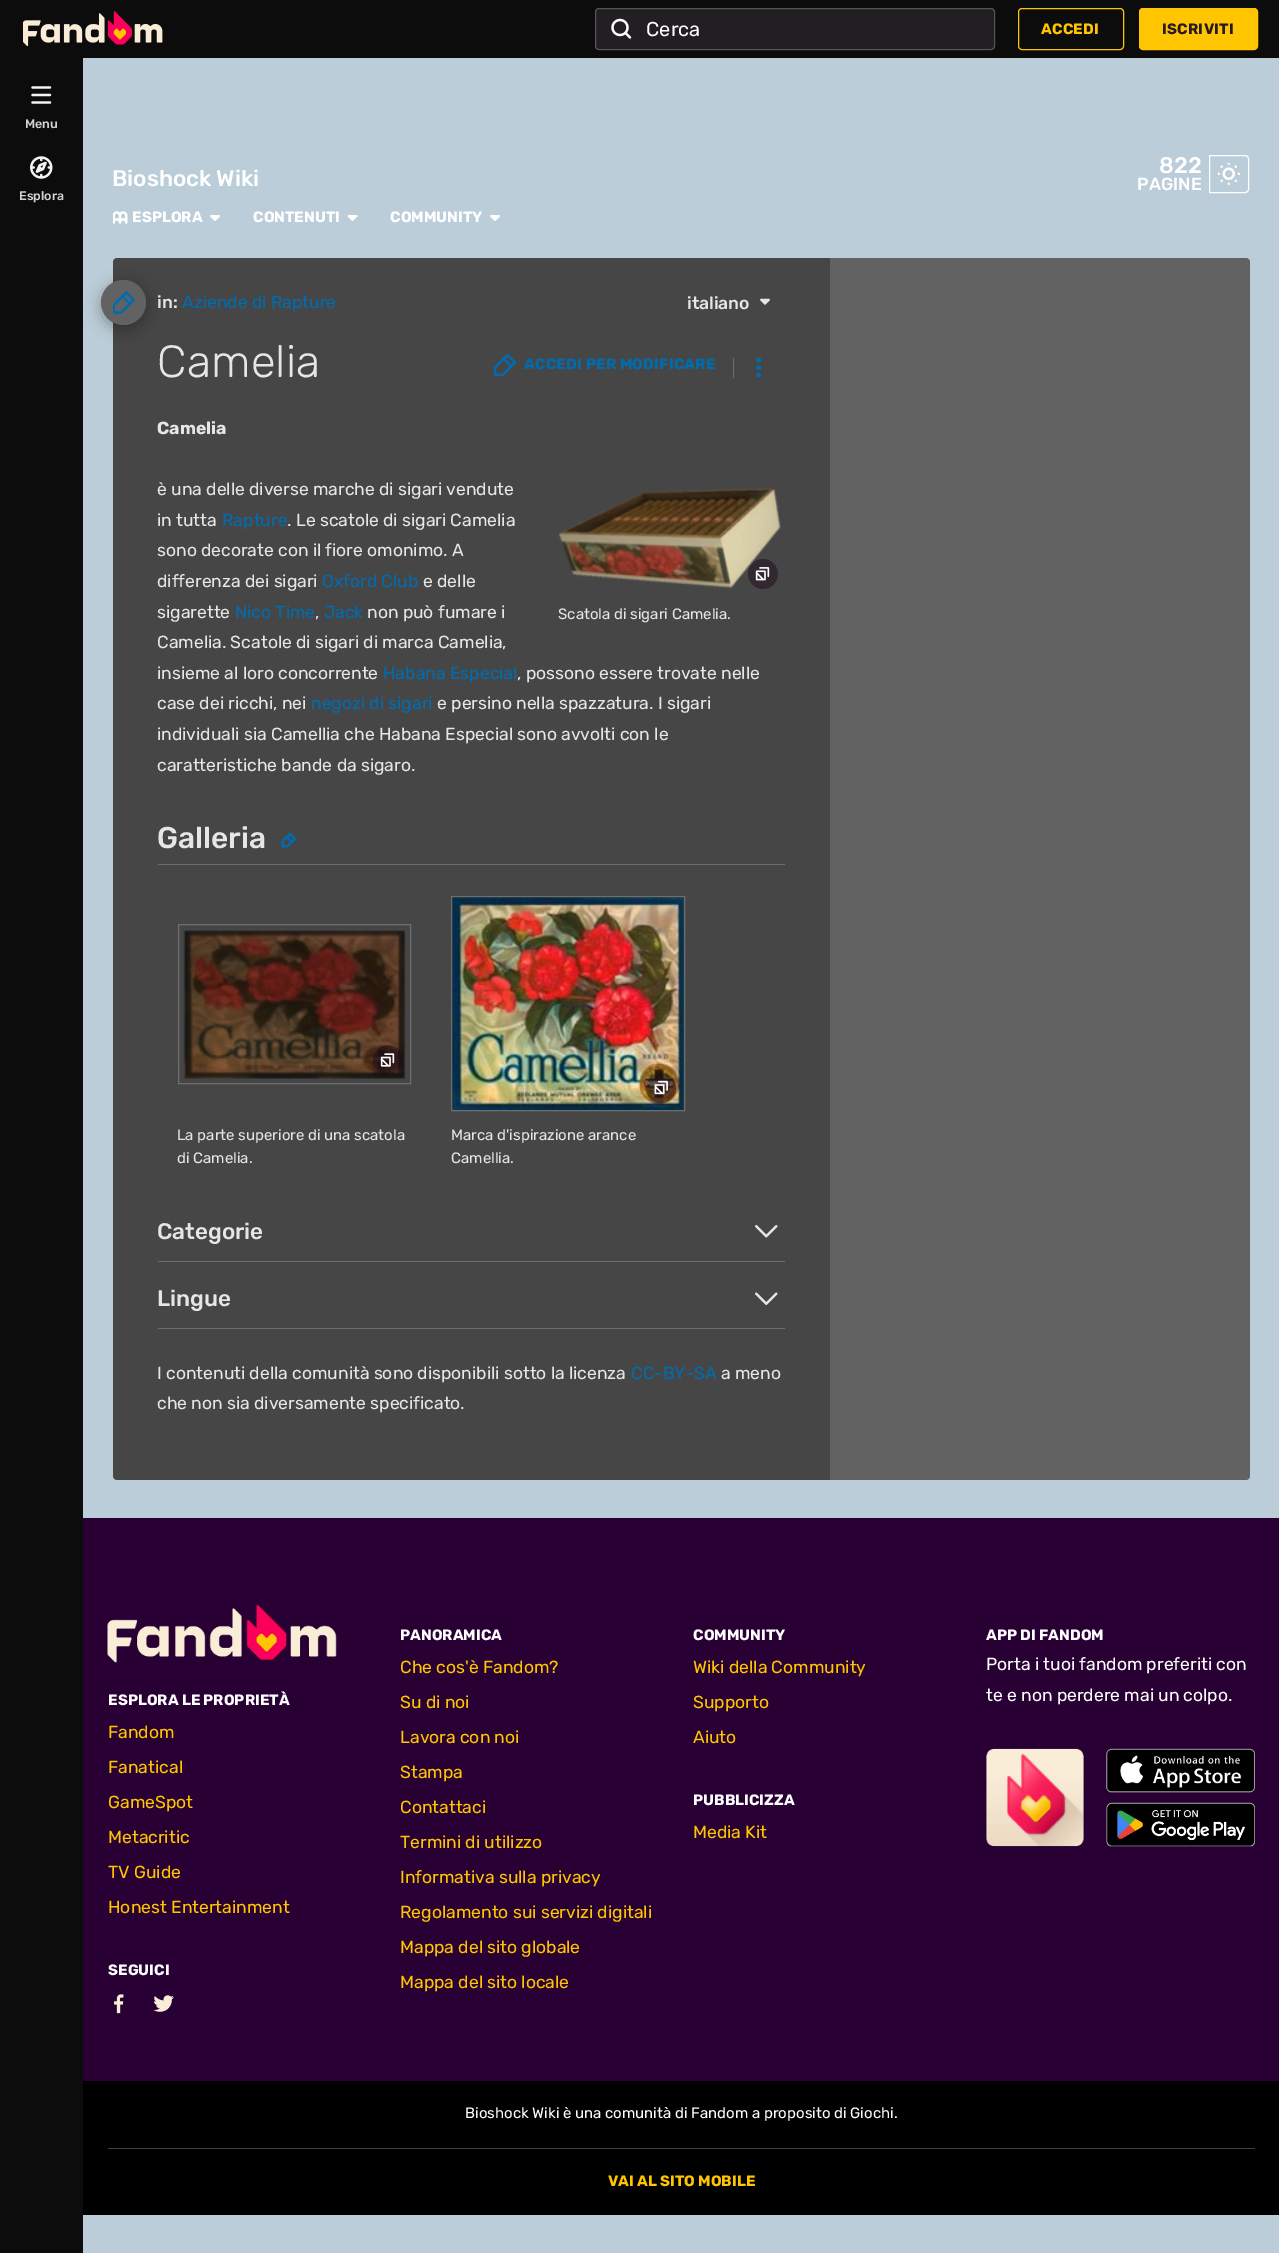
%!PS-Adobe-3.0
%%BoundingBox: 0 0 1279 2253
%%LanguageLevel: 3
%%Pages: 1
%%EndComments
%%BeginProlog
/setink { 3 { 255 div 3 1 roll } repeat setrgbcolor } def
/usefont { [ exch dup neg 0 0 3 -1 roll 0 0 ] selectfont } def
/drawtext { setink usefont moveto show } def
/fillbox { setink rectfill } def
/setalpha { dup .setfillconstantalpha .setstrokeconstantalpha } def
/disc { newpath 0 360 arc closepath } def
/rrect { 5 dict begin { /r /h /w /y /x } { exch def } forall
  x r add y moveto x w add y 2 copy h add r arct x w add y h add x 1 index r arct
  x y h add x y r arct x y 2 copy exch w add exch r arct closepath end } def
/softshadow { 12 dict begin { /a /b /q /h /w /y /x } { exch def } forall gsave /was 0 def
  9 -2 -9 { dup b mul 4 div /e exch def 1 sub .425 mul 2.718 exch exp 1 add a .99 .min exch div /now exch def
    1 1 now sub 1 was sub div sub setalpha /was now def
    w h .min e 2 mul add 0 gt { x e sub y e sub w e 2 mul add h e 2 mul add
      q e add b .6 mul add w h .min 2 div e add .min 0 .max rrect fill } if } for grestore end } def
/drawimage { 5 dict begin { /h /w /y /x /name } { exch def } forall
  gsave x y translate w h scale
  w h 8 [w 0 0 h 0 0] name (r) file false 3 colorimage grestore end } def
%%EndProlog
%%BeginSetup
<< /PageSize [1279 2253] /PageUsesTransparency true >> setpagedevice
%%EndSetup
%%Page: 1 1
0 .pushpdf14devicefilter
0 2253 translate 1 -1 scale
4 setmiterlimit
0 0 1279 2253 186 205 216 fillbox
0 0 1279 58 12 12 12 fillbox
(assets/img1.rgb) 23 11 140 36 drawimage
33 31 33 setink
595 8 400 42 4 rrect fill
0.25 setalpha
245 243 245 setink
595.5 8.5 399 41 3.5 rrect stroke
1 setalpha
(assets/img2.rgb) 611 18 21 21 drawimage
(Cerca) 646 36 /Rubik-Regular 20 255 255 255 drawtext
255 197 0 setink
1018.5 8.5 105 41 3.5 rrect stroke
/Rubik-Bold 15 usefont
1041 34 moveto 0.2 0 (ACCEDI) ashow
1139.5 8.5 118 41 3.5 rrect gsave fill grestore
stroke
41 25 39 setink
1162 34 moveto 0.2 0 (ISCRIVITI) ashow
71 70 70 setink
117 258 moveto 830 258 lineto 830 1480 lineto 117 1480 lineto 115 1480 113 1478 113 1476 curveto 113 262 lineto 113 260 115 258 117 258 curveto closepath fill
0 0 0 setink
101 284 45 45 22.5 7.5 0.3 softshadow
0 58 83 2195 12 12 12 fillbox
(assets/img3.rgb) 31 86 21 18 drawimage
(Menu) 25 128 /Rubik-Medium 12.5 214 208 213 drawtext
(assets/img4.rgb) 30 156 23 23 drawimage
(Esplora) 19 200 /Rubik-Medium 12.5 214 208 213 drawtext
(Bioshock Wiki) 112 186 /Rubik-Medium 22.5 255 255 255 drawtext
(822) 1159 173 /Rubik-Medium 22.5 255 255 255 drawtext
(PAGINE) 1137 190 /Rubik-Medium 17.5 255 255 255 drawtext
1209.5 155.5 moveto 1245 155.5 lineto 1247 155.5 1248.5 157 1248.5 159 curveto 1248.5 189 lineto 1248.5 191 1247 192.5 1245 192.5 curveto 1209.5 192.5 lineto closepath stroke
(assets/img5.rgb) 1218 163 22 22 drawimage
(assets/img6.rgb) 113 211 15 13 drawimage
(ESPLORA) 132 222 /Rubik-Bold 15 255 255 255 drawtext
(assets/img7.rgb) 210 215 10 6 drawimage
(CONTENUTI) 253 222 /Rubik-Bold 15 255 255 255 drawtext
(assets/img8.rgb) 347 215 11 6 drawimage
(COMMUNITY) 390 222 /Rubik-Bold 15 255 255 255 drawtext
(assets/img7.rgb) 490 215 10 6 drawimage
99 98 98 setink
123.5 302.5 22.5 disc fill
(assets/img9.rgb) 113 291 22 23 drawimage
(in:) 157 308 /Rubik-Medium 17.5 230 230 230 drawtext
(Aziende di Rapture) 182 308 /Rubik-Regular 17.5 0 108 176 drawtext
(italiano) 687 309 /Rubik-Medium 17.5 230 230 230 drawtext
(assets/img10.rgb) 760 298 10 7 drawimage
/Rubik-Light 45 usefont
157 377 moveto 0.25 0 (Camelia) ashow
(assets/img11.rgb) 494 354 22 22 drawimage
/Rubik-Bold 15 usefont
0 108 176 setink
524 369 moveto 0.2 0 (ACCEDI PER MODIFICARE) ashow
733 358 1 20 111 110 110 fillbox
(assets/img12.rgb) 756 357 6 21 drawimage
(Camelia) 157 434 /Rubik-Bold 17.5 230 230 230 drawtext
(è una delle diverse marche di sigari vendute) 157 495 /Rubik-Regular 17.5 230 230 230 drawtext
(in tutta) 157 526 /Rubik-Regular 17.5 230 230 230 drawtext
(Rapture) 222 526 /Rubik-Regular 17.5 0 108 176 drawtext
(. Le scatole di sigari Camelia) 287 526 /Rubik-Regular 17.5 230 230 230 drawtext
(sono decorate con il fiore omonimo. A) 157 556 /Rubik-Regular 17.5 230 230 230 drawtext
(differenza dei sigari) 157 587 /Rubik-Regular 17.5 230 230 230 drawtext
(Oxford Club) 322 587 /Rubik-Regular 17.5 0 108 176 drawtext
(e delle) 423 587 /Rubik-Regular 17.5 230 230 230 drawtext
(sigarette) 157 618 /Rubik-Regular 17.5 230 230 230 drawtext
(Nico Time) 235 618 /Rubik-Regular 17.5 0 108 176 drawtext
(,) 315 618 /Rubik-Regular 17.5 230 230 230 drawtext
(Jack) 324 618 /Rubik-Regular 17.5 0 108 176 drawtext
(non può fumare i) 367 618 /Rubik-Regular 17.5 230 230 230 drawtext
(Camelia. Scatole di sigari di marca Camelia,) 157 648 /Rubik-Regular 17.5 230 230 230 drawtext
(insieme al loro concorrente) 157 679 /Rubik-Regular 17.5 230 230 230 drawtext
(Habana Especial) 383 679 /Rubik-Regular 17.5 0 108 176 drawtext
(, possono essere trovate nelle) 517 679 /Rubik-Regular 17.5 230 230 230 drawtext
(case dei ricchi, nei) 157 709 /Rubik-Regular 17.5 230 230 230 drawtext
(negozi di sigari) 311 709 /Rubik-Regular 17.5 0 108 176 drawtext
(e persino nella spazzatura. I sigari) 437 709 /Rubik-Regular 17.5 230 230 230 drawtext
(individuali sia Camellia che Habana Especial sono avvolti con le) 157 740 /Rubik-Regular 17.5 230 230 230 drawtext
(caratteristiche bande da sigaro.) 157 771 /Rubik-Regular 17.5 230 230 230 drawtext
(assets/img13.rgb) 558 488 223 101 drawimage
0.5 setalpha
30 12 27 setink
763 574 15 disc fill
1 setalpha
(assets/img14.rgb) 755 567 15 14 drawimage
(Scatola di sigari Camelia.) 558 619 /Rubik-Regular 15 230 230 230 drawtext
158 864 627 1 111 110 110 fillbox
(Galleria) 157 848 /Rubik-Medium 30 230 230 230 drawtext
(assets/img15.rgb) 281 833 15 15 drawimage
111 110 110 setink
178.5 924.5 232 159 rectstroke
(assets/img16.rgb) 183 930 223 149 drawimage
0.5 setalpha
30 12 27 setink
388 1060 15 disc fill
1 setalpha
(assets/img17.rgb) 380 1053 15 14 drawimage
(La parte superiore di una scatola) 177 1140 /Rubik-Regular 15 230 230 230 drawtext
(di Camelia.) 177 1163 /Rubik-Regular 15 230 230 230 drawtext
111 110 110 setink
451.5 896.5 233 214 rectstroke
(assets/img18.rgb) 452 897 232 213 drawimage
0.5 setalpha
30 12 27 setink
661 1088 15 disc fill
1 setalpha
(assets/img19.rgb) 654 1080 14 15 drawimage
(Marca d'ispirazione arance) 451 1140 /Rubik-Regular 15 230 230 230 drawtext
(Camellia.) 451 1163 /Rubik-Regular 15 230 230 230 drawtext
158 1261 627 1 111 110 110 fillbox
(Categorie) 157 1239 /Rubik-Medium 22.5 230 230 230 drawtext
(assets/img20.rgb) 755 1225 23 13 drawimage
158 1328 627 1 111 110 110 fillbox
(Lingue) 157 1306 /Rubik-Medium 22.5 230 230 230 drawtext
(assets/img21.rgb) 755 1292 23 13 drawimage
(I contenuti della comunità sono disponibili sotto la licenza) 157 1379 /Rubik-Regular 17.5 230 230 230 drawtext
(CC-BY-SA) 631 1379 /Rubik-Regular 17.5 0 108 176 drawtext
(a meno) 721 1379 /Rubik-Regular 17.5 230 230 230 drawtext
(che non sia diversamente specificato.) 157 1409 /Rubik-Regular 17.5 230 230 230 drawtext
99 98 98 setink
830 258 moveto 1246 258 lineto 1248 258 1250 260 1250 262 curveto 1250 1476 lineto 1250 1478 1248 1480 1246 1480 curveto 830 1480 lineto closepath fill
83 1518 1196 563 40 0 51 fillbox
(PANORAMICA) 400 1640 /Rubik-Bold 15 255 255 255 drawtext
(Che cos'è Fandom?) 400 1673 /Rubik-Regular 17.5 255 197 0 drawtext
(Su di noi) 400 1708 /Rubik-Regular 17.5 255 197 0 drawtext
(Lavora con noi) 400 1743 /Rubik-Regular 17.5 255 197 0 drawtext
(Stampa) 400 1778 /Rubik-Regular 17.5 255 197 0 drawtext
(Contattaci) 400 1813 /Rubik-Regular 17.5 255 197 0 drawtext
(Termini di utilizzo) 400 1848 /Rubik-Regular 17.5 255 197 0 drawtext
(Informativa sulla privacy) 400 1883 /Rubik-Regular 17.5 255 197 0 drawtext
(Regolamento sui servizi digitali) 400 1918 /Rubik-Regular 17.5 255 197 0 drawtext
(Mappa del sito globale) 400 1953 /Rubik-Regular 17.5 255 197 0 drawtext
(Mappa del sito locale) 400 1988 /Rubik-Regular 17.5 255 197 0 drawtext
(COMMUNITY) 693 1640 /Rubik-Bold 15 255 255 255 drawtext
(Wiki della Community) 693 1673 /Rubik-Regular 17.5 255 197 0 drawtext
(Supporto) 693 1708 /Rubik-Regular 17.5 255 197 0 drawtext
(Aiuto) 693 1743 /Rubik-Regular 17.5 255 197 0 drawtext
(PUBBLICIZZA) 693 1805 /Rubik-Bold 15 255 255 255 drawtext
(Media Kit) 693 1838 /Rubik-Regular 17.5 255 197 0 drawtext
(APP DI FANDOM) 986 1640 /Rubik-Bold 15 255 255 255 drawtext
(Porta i tuoi fandom preferiti con) 986 1670 /Rubik-Regular 17.5 255 255 255 drawtext
(te e non perdere mai un colpo.) 986 1701 /Rubik-Regular 17.5 255 255 255 drawtext
(assets/img22.rgb) 986 1748 98 99 drawimage
(assets/img23.rgb) 1106 1748 149 45 drawimage
(assets/img24.rgb) 1106 1802 149 45 drawimage
(assets/img25.rgb) 107 1605 230 58 drawimage
(ESPLORA LE PROPRIETÀ) 108 1705 /Rubik-Bold 15 255 255 255 drawtext
(Fandom) 108 1738 /Rubik-Regular 17.5 255 197 0 drawtext
(Fanatical) 108 1773 /Rubik-Regular 17.5 255 197 0 drawtext
(GameSpot) 108 1808 /Rubik-Regular 17.5 255 197 0 drawtext
(Metacritic) 108 1843 /Rubik-Regular 17.5 255 197 0 drawtext
(TV Guide) 108 1878 /Rubik-Regular 17.5 255 197 0 drawtext
(Honest Entertainment) 108 1913 /Rubik-Regular 17.5 255 197 0 drawtext
(SEGUICI) 108 1975 /Rubik-Bold 15 255 255 255 drawtext
(assets/img26.rgb) 114 1994 10 20 drawimage
(assets/img27.rgb) 153 1995 21 17 drawimage
83 2081 1196 134 0 0 0 fillbox
(Bioshock Wiki è una comunità di Fandom a proposito di Giochi.) 465 2118 /Rubik-Regular 15 255 255 255 drawtext
108 2148 1147 1 64 64 64 fillbox
(VAI AL SITO MOBILE) 608 2186 /Rubik-Bold 15 255 197 0 drawtext
.poppdf14devicefilter showpage
%%EOF
